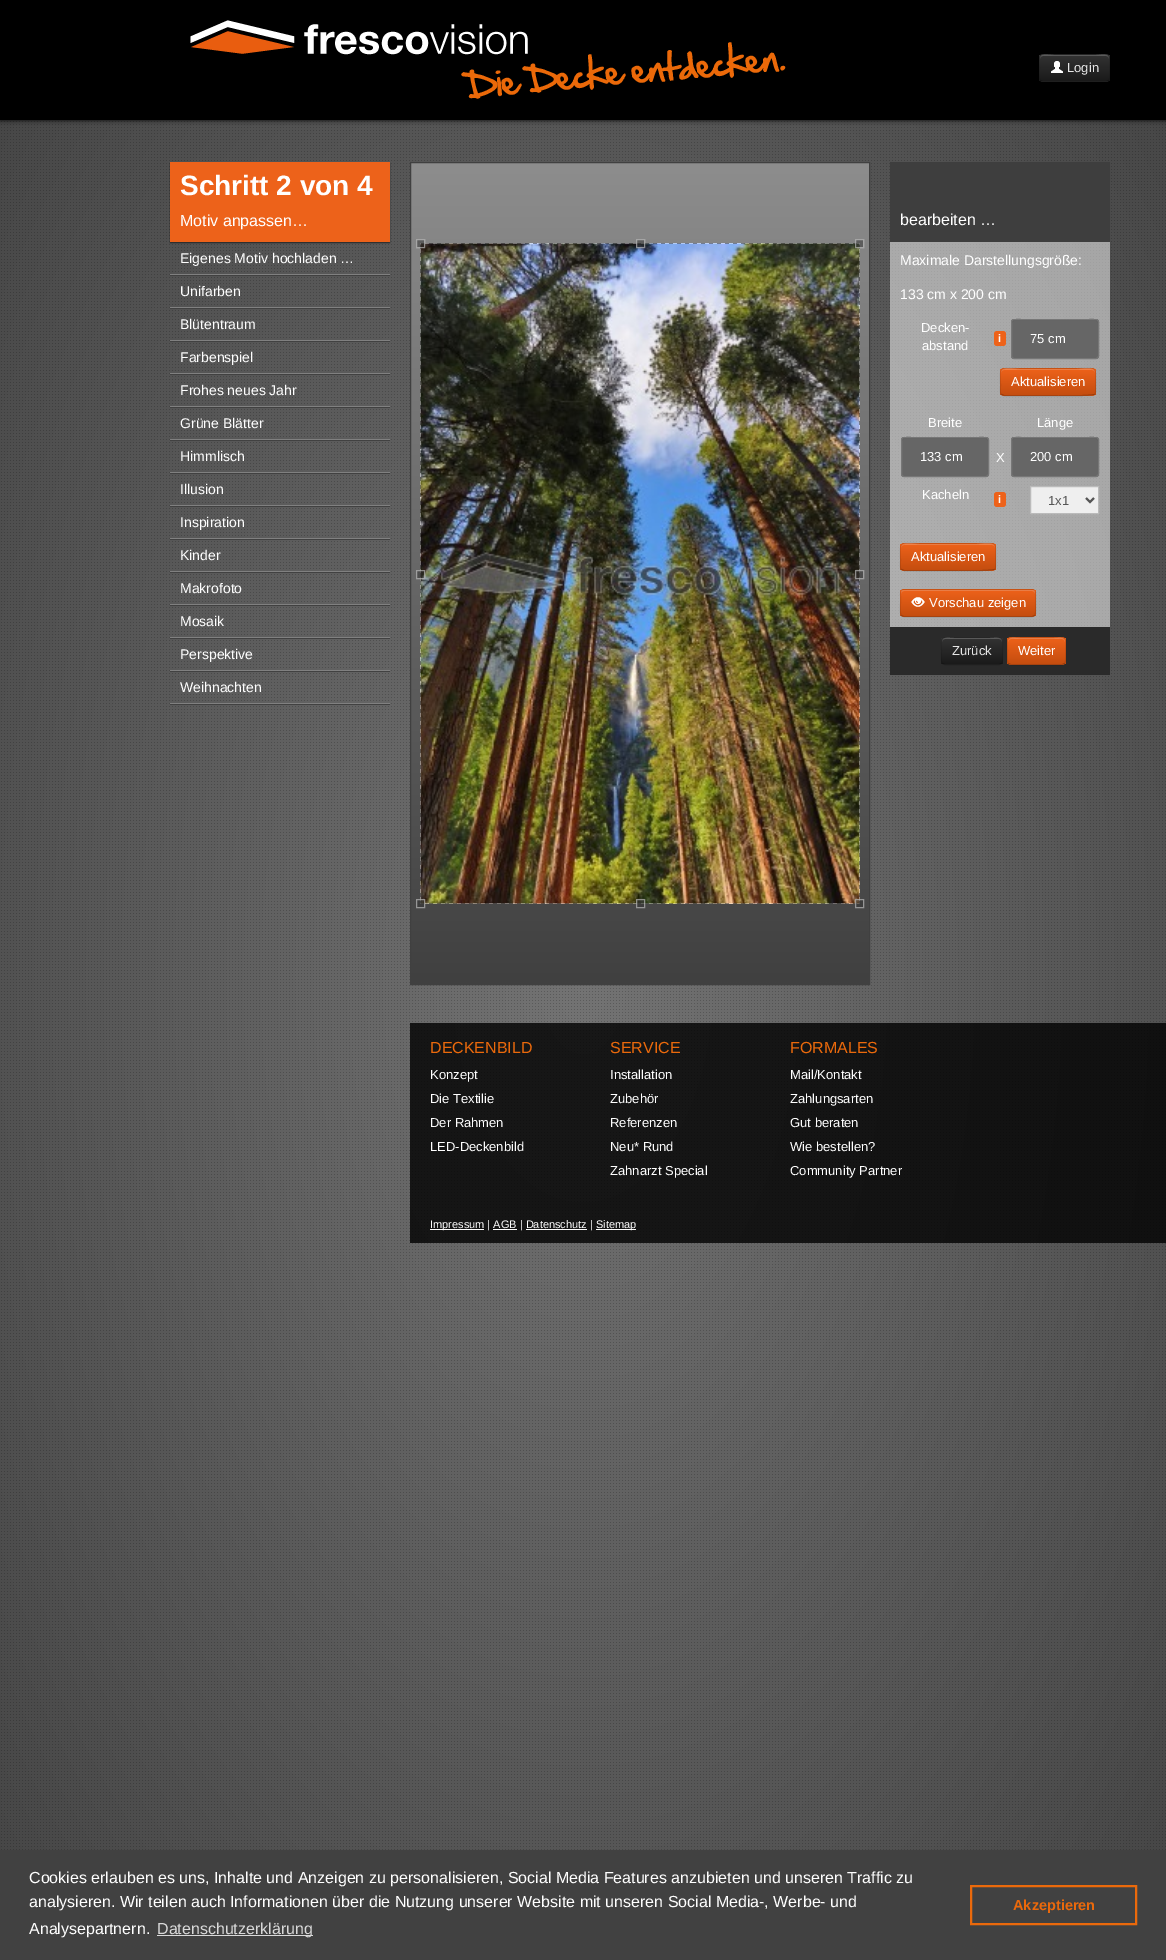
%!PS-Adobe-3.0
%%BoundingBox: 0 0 1166 1960
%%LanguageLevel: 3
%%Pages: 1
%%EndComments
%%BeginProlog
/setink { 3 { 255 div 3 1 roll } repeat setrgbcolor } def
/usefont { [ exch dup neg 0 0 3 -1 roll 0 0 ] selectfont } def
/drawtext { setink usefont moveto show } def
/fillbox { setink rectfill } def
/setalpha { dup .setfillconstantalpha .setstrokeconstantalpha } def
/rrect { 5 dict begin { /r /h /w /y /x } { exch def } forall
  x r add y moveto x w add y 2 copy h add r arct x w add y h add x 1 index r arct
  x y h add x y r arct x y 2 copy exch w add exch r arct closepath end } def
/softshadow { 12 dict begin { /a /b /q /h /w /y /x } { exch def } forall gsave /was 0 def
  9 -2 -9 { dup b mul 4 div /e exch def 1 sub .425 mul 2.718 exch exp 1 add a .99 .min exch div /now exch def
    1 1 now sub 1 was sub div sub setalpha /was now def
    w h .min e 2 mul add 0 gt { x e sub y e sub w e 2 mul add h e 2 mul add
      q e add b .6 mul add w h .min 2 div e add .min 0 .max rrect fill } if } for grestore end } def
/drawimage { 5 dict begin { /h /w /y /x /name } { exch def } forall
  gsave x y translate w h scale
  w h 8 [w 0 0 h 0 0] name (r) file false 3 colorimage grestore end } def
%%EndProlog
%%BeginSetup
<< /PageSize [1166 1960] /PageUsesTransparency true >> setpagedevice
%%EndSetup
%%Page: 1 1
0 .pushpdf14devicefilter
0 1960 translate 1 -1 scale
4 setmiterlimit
0 0 1166 1960 255 255 255 fillbox
gsave 0 120 moveto 1166 120 lineto 1166 1850 lineto 0 1850 lineto closepath clip newpath 583 980 translate 824 1386 scale
<< /ShadingType 3 /ColorSpace /DeviceRGB /Coords [0 0 0 0 0 1] /Extend [true true] /Function << /FunctionType 2 /Domain [0 1] /C0 [0.451 0.451 0.451] /C1 [0.267 0.267 0.267] /N 1 >> >> shfill grestore
(assets/img9.rgb) 1 121 1165 1729 drawimage
0 0 0 setink
0 0 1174 120 0 2.5 1 softshadow
0 0 1166 120 0 0 0 fillbox
(assets/img1.rgb) 190 20 596 79 drawimage
41 41 41 setink
1039 54 71 28 4 rrect fill
gsave
1039 54 71 28 4 rrect clip newpath
gsave 1039 55 moveto 1110 55 lineto 1110 81 lineto 1039 81 lineto closepath clip newpath
<< /ShadingType 2 /ColorSpace /DeviceRGB /Coords [1075 55 1075 81] /Extend [true true] /Function << /FunctionType 2 /Domain [0 1] /C0 [0.2 0.2 0.2] /C1 [0.102 0.102 0.102] /N 1 >> >> shfill grestore
grestore
0.2 setalpha
255 255 255 setink
1043 56 moveto 1106 56 lineto 1108 56 1109 57 1109 59 curveto 1109 52 1100 55 1096 55 curveto 1054 55 lineto 1049 55 1040 52 1040 59 curveto 1040 57 1041 56 1043 56 curveto closepath fill
0.25 setalpha
0 0 0 setink
1108.5 80.5 moveto 1106.5 81.5 lineto 1042.5 81.5 lineto 1040.5 80.5 lineto stroke
0.1 setalpha
1040.5 80.5 moveto 1038.5 78 1039.5 70.5 1039.5 68 curveto 1039.5 52.5 1037.5 54.5 1053.5 54.5 curveto 1095.5 54.5 lineto 1111.5 54.5 1109.5 52.5 1109.5 68 curveto 1109.5 70.5 1110.5 78 1108.5 80.5 curveto stroke
1 setalpha
(assets/img2.rgb) 1051 61 12 12 drawimage
(Login) 1067 72 /LiberationSans-Regular 13 230 230 230 drawtext
0 0 0 setink
170 163 220 80 0 0.5 0.5 softshadow
170 162 220 80 237 98 26 fillbox
(Schritt 2 von 4) 180 195 /LiberationSans-Bold 28 255 255 255 drawtext
(Motiv anpassen…) 180 226 /LiberationSans-Regular 16 255 255 255 drawtext
170 275 220 1 65 65 65 fillbox
170 274 220 1 128 128 128 fillbox
(Eigenes Motiv hochladen …) 180 263 /LiberationSans-Regular 14 255 255 255 drawtext
170 308 220 1 65 65 65 fillbox
170 307 220 1 128 128 128 fillbox
(Unifarben) 180 296 /LiberationSans-Regular 14 255 255 255 drawtext
170 341 220 1 65 65 65 fillbox
170 340 220 1 128 128 128 fillbox
(Blütentraum) 180 329 /LiberationSans-Regular 14 255 255 255 drawtext
170 374 220 1 65 65 65 fillbox
170 373 220 1 128 128 128 fillbox
(Farbenspiel) 180 362 /LiberationSans-Regular 14 255 255 255 drawtext
170 407 220 1 65 65 65 fillbox
170 406 220 1 128 128 128 fillbox
(Frohes neues Jahr) 180 395 /LiberationSans-Regular 14 255 255 255 drawtext
170 440 220 1 65 65 65 fillbox
170 439 220 1 128 128 128 fillbox
(Grüne Blätter) 180 428 /LiberationSans-Regular 14 255 255 255 drawtext
170 473 220 1 65 65 65 fillbox
170 472 220 1 128 128 128 fillbox
(Himmlisch) 180 461 /LiberationSans-Regular 14 255 255 255 drawtext
170 506 220 1 65 65 65 fillbox
170 505 220 1 128 128 128 fillbox
(Illusion) 180 494 /LiberationSans-Regular 14 255 255 255 drawtext
170 539 220 1 65 65 65 fillbox
170 538 220 1 128 128 128 fillbox
(Inspiration) 180 527 /LiberationSans-Regular 14 255 255 255 drawtext
170 572 220 1 65 65 65 fillbox
170 571 220 1 128 128 128 fillbox
(Kinder) 180 560 /LiberationSans-Regular 14 255 255 255 drawtext
170 605 220 1 65 65 65 fillbox
170 604 220 1 128 128 128 fillbox
(Makrofoto) 180 593 /LiberationSans-Regular 14 255 255 255 drawtext
170 638 220 1 65 65 65 fillbox
170 637 220 1 128 128 128 fillbox
(Mosaik) 180 626 /LiberationSans-Regular 14 255 255 255 drawtext
170 671 220 1 65 65 65 fillbox
170 670 220 1 128 128 128 fillbox
(Perspektive) 180 659 /LiberationSans-Regular 14 255 255 255 drawtext
170 704 220 1 65 65 65 fillbox
170 703 220 1 128 128 128 fillbox
(Weihnachten) 180 692 /LiberationSans-Regular 14 255 255 255 drawtext
gsave 411 163 moveto 869 163 lineto 869 984 lineto 411 984 lineto closepath clip newpath
<< /ShadingType 2 /ColorSpace /DeviceRGB /Coords [640 163 640 984] /Extend [true true] /Function << /FunctionType 2 /Domain [0 1] /C0 [0.553 0.553 0.553] /C1 [0.251 0.251 0.251] /N 1 >> >> shfill grestore
64 64 64 setink
410.5 162.5 459 822 rectstroke
(assets/img3.rgb) 420 243 440 661 drawimage
0.4 setalpha
420 243 440 1 255 255 255 fillbox
1 setalpha
(assets/img4.rgb) 421 243 436 1 drawimage
0.4 setalpha
420 903 440 1 255 255 255 fillbox
420 243 1 661 255 255 255 fillbox
1 setalpha
(assets/img5.rgb) 420 245 1 659 drawimage
0.5 setalpha
416 239 9 9 51 51 51 fillbox
238 238 238 setink
416.5 239.5 8 8 rectstroke
636 239 9 9 51 51 51 fillbox
238 238 238 setink
636.5 239.5 8 8 rectstroke
0.4 setalpha
859 243 1 661 255 255 255 fillbox
1 setalpha
(assets/img6.rgb) 859 245 1 659 drawimage
0.5 setalpha
855 239 9 9 51 51 51 fillbox
238 238 238 setink
855.5 239.5 8 8 rectstroke
416 570 9 9 51 51 51 fillbox
238 238 238 setink
416.5 570.5 8 8 rectstroke
855 570 9 9 51 51 51 fillbox
238 238 238 setink
855.5 570.5 8 8 rectstroke
1 setalpha
(assets/img7.rgb) 421 903 436 1 drawimage
0.5 setalpha
416 899 9 9 51 51 51 fillbox
238 238 238 setink
416.5 899.5 8 8 rectstroke
636 899 9 9 51 51 51 fillbox
238 238 238 setink
636.5 899.5 8 8 rectstroke
855 899 9 9 51 51 51 fillbox
238 238 238 setink
855.5 899.5 8 8 rectstroke
1 setalpha
890 162 220 80 62 62 62 fillbox
(bearbeiten …) 900 225 /LiberationSans-Regular 16 255 255 255 drawtext
0.5 setalpha
890 242 220 291 255 255 255 fillbox
1 setalpha
(Maximale Darstellungsgröße:) 900 265 /LiberationSans-Regular 14 255 255 255 drawtext
(133 cm x 200 cm) 900 299 /LiberationSans-Regular 14 255 255 255 drawtext
(Decken-) 921 332 /LiberationSans-Regular 13 255 255 255 drawtext
(abstand) 922 350 /LiberationSans-Regular 13 255 255 255 drawtext
237 98 26 setink
994 331 12 15 3 rrect fill
(i) 998 342 /LiberationSans-Bold 11 255 255 255 drawtext
102 102 102 setink
1011 319 88 40 3 rrect fill
94 94 94 setink
1014 321 moveto 1096 321 lineto 1097 321 1098 322 1098 323 curveto 1098 316 1085 320 1082 320 curveto 1028 320 lineto 1025 320 1012 316 1012 323 curveto 1012 322 1013 321 1014 321 curveto closepath fill
119 119 119 setink
1011.5 319.5 87 39 2.5 rrect stroke
(75 cm) 1030 343 /LiberationSans-Regular 13 255 255 255 drawtext
221 90 22 setink
1000 368 96 28 4 rrect fill
gsave
1000 368 96 28 4 rrect clip newpath
gsave 1000 369 moveto 1096 369 lineto 1096 395 lineto 1000 395 lineto closepath clip newpath
<< /ShadingType 2 /ColorSpace /DeviceRGB /Coords [1048 369 1048 395] /Extend [true true] /Function << /FunctionType 2 /Domain [0 1] /C0 [0.929 0.384 0.102] /C1 [0.773 0.302 0.059] /N 1 >> >> shfill grestore
grestore
0.2 setalpha
255 255 255 setink
1004 370 moveto 1092 370 lineto 1094 370 1095 371 1095 373 curveto 1095 365 1081 369 1077 369 curveto 1019 369 lineto 1015 369 1001 365 1001 373 curveto 1001 371 1002 370 1004 370 curveto closepath fill
0.25 setalpha
0 0 0 setink
1094.5 394.5 moveto 1094 394.5 lineto 1092 396.5 1027 395.5 1018.5 395.5 curveto 1004 395.5 lineto 1001.5 394.5 lineto stroke
0.1 setalpha
1001.5 394.5 moveto 999.5 392.5 1000.5 388 1000.5 385.5 curveto 1000.5 365.5 997.5 368.5 1018.5 368.5 curveto 1077.5 368.5 lineto 1098.5 368.5 1095.5 365.5 1095.5 385.5 curveto 1095.5 388 1096.5 392.5 1094.5 394.5 curveto stroke
1 setalpha
(Aktualisieren) 1011 386 /LiberationSans-Regular 13 255 255 255 drawtext
(Breite) 928 427 /LiberationSans-Regular 13 255 255 255 drawtext
102 102 102 setink
901 437 88 40 3 rrect fill
94 94 94 setink
904 439 moveto 986 439 lineto 987 439 988 440 988 441 curveto 988 434 975 438 972 438 curveto 918 438 lineto 915 438 902 434 902 441 curveto 902 440 903 439 904 439 curveto closepath fill
119 119 119 setink
901.5 437.5 87 39 2.5 rrect stroke
(133 cm) 920 461 /LiberationSans-Regular 13 255 255 255 drawtext
(X) 996 462 /LiberationSans-Regular 13 255 255 255 drawtext
(Länge) 1037 427 /LiberationSans-Regular 13 255 255 255 drawtext
102 102 102 setink
1011 437 88 40 3 rrect fill
94 94 94 setink
1014 439 moveto 1096 439 lineto 1097 439 1098 440 1098 441 curveto 1098 434 1085 438 1082 438 curveto 1028 438 lineto 1025 438 1012 434 1012 441 curveto 1012 440 1013 439 1014 439 curveto closepath fill
119 119 119 setink
1011.5 437.5 87 39 2.5 rrect stroke
(200 cm) 1030 461 /LiberationSans-Regular 13 255 255 255 drawtext
(Kacheln) 922 499 /LiberationSans-Regular 13 255 255 255 drawtext
237 98 26 setink
994 492 12 15 3 rrect fill
(i) 998 503 /LiberationSans-Bold 11 255 255 255 drawtext
239 239 239 setink
1030.5 486.5 moveto 1098.5 486.5 lineto 1098.5 513.5 lineto 1030.5 513.5 lineto closepath gsave fill grestore
187 187 187 setink
stroke
85 85 85 setink
2 setlinewidth
1086 498 moveto 1090 502 lineto 1094 498 lineto stroke
(1x1) 1048 505 /LiberationSans-Regular 13 85 85 85 drawtext
0.5 setalpha
890 533 220 94 255 255 255 fillbox
1 setalpha
221 90 22 setink
900 543 96 28 4 rrect fill
gsave
900 543 96 28 4 rrect clip newpath
gsave 900 544 moveto 996 544 lineto 996 570 lineto 900 570 lineto closepath clip newpath
<< /ShadingType 2 /ColorSpace /DeviceRGB /Coords [948 544 948 570] /Extend [true true] /Function << /FunctionType 2 /Domain [0 1] /C0 [0.929 0.384 0.102] /C1 [0.773 0.302 0.059] /N 1 >> >> shfill grestore
grestore
0.2 setalpha
255 255 255 setink
904 545 moveto 992 545 lineto 994 545 995 546 995 548 curveto 995 540 981 544 977 544 curveto 919 544 lineto 915 544 901 540 901 548 curveto 901 546 902 545 904 545 curveto closepath fill
0.25 setalpha
0 0 0 setink
1 setlinewidth
994.5 569.5 moveto 994 569.5 lineto 992 571.5 927 570.5 918.5 570.5 curveto 904 570.5 lineto 901.5 569.5 lineto stroke
0.1 setalpha
901.5 569.5 moveto 899.5 567.5 900.5 563 900.5 560.5 curveto 900.5 540.5 897.5 543.5 918.5 543.5 curveto 977.5 543.5 lineto 998.5 543.5 995.5 540.5 995.5 560.5 curveto 995.5 563 996.5 567.5 994.5 569.5 curveto stroke
1 setalpha
(Aktualisieren) 911 561 /LiberationSans-Regular 13 255 255 255 drawtext
221 90 22 setink
900 589 136 28 4 rrect fill
gsave
900 589 136 28 4 rrect clip newpath
gsave 900 590 moveto 1036 590 lineto 1036 616 lineto 900 616 lineto closepath clip newpath
<< /ShadingType 2 /ColorSpace /DeviceRGB /Coords [968 590 968 616] /Extend [true true] /Function << /FunctionType 2 /Domain [0 1] /C0 [0.929 0.384 0.102] /C1 [0.773 0.302 0.059] /N 1 >> >> shfill grestore
grestore
240 129 72 setink
904 591 moveto 1032 591 lineto 1034 591 1035 592 1035 594 curveto 1035 592 1035 590 1033 590 curveto 903 590 lineto 901 590 901 592 901 594 curveto 901 592 902 591 904 591 curveto closepath fill
0.25 setalpha
0 0 0 setink
1034.5 615.5 moveto 1034 616 1033 616.5 1032 616.5 curveto 904 616.5 lineto 903 616.5 902 616 901.5 615.5 curveto stroke
0.1 setalpha
901.5 615.5 moveto 899.5 613 900.5 605.5 900.5 603 curveto 900.5 596.5 lineto 900.5 593.5 900 589.5 904 589.5 curveto 1032 589.5 lineto 1036 589.5 1035.5 593.5 1035.5 596.5 curveto 1035.5 603 lineto 1035.5 605.5 1036.5 613 1034.5 615.5 curveto stroke
1 setalpha
(assets/img8.rgb) 911 597 14 10 drawimage
(Vorschau zeigen) 929 607 /LiberationSans-Regular 13 255 255 255 drawtext
890 627 220 48 42 42 42 fillbox
gsave
941 637 62 28 4 rrect clip newpath
gsave 941 638 moveto 1003 638 lineto 1003 664 lineto 941 664 lineto closepath clip newpath
<< /ShadingType 2 /ColorSpace /DeviceRGB /Coords [972 638 972 664] /Extend [true true] /Function << /FunctionType 2 /Domain [0 1] /C0 [0.2 0.2 0.2] /C1 [0.102 0.102 0.102] /N 1 >> >> shfill grestore
grestore
92 92 92 setink
945 639 moveto 999 639 lineto 1001 639 1002 640 1002 642 curveto 1002 636 994 638 990 638 curveto 954 638 lineto 950 638 942 636 942 642 curveto 942 640 943 639 945 639 curveto closepath fill
0.25 setalpha
0 0 0 setink
1001.5 663.5 moveto 999.5 664.5 lineto 944.5 664.5 lineto 942.5 663.5 lineto stroke
0.1 setalpha
942.5 663.5 moveto 940.5 661 941.5 653.5 941.5 651 curveto 941.5 636.5 939.5 637.5 954 637.5 curveto 990 637.5 lineto 1004.5 637.5 1002.5 636.5 1002.5 651 curveto 1002.5 653.5 1003.5 661 1001.5 663.5 curveto stroke
1 setalpha
(Zurück) 952 655 /LiberationSans-Regular 13 230 230 230 drawtext
221 90 22 setink
1007 637 59 28 4 rrect fill
gsave
1007 637 59 28 4 rrect clip newpath
gsave 1007 638 moveto 1066 638 lineto 1066 664 lineto 1007 664 lineto closepath clip newpath
<< /ShadingType 2 /ColorSpace /DeviceRGB /Coords [1037 638 1037 664] /Extend [true true] /Function << /FunctionType 2 /Domain [0 1] /C0 [0.929 0.384 0.102] /C1 [0.773 0.302 0.059] /N 1 >> >> shfill grestore
grestore
240 129 72 setink
1011 639 moveto 1062 639 lineto 1064 639 1065 640 1065 642 curveto 1065 636 1058 638 1054 638 curveto 1020 638 lineto 1015 638 1008 636 1008 642 curveto 1008 640 1009 639 1011 639 curveto closepath fill
0.25 setalpha
0 0 0 setink
1064.5 663.5 moveto 1062.5 664.5 lineto 1010.5 664.5 lineto 1008.5 663.5 lineto stroke
0.1 setalpha
1008.5 663.5 moveto 1006.5 661 1007.5 653.5 1007.5 651 curveto 1007.5 636.5 1005 637.5 1019.5 637.5 curveto 1053.5 637.5 lineto 1068 637.5 1065.5 636.5 1065.5 651 curveto 1065.5 653.5 1066.5 661 1064.5 663.5 curveto stroke
1 setalpha
(Weiter) 1018 655 /LiberationSans-Regular 13 255 255 255 drawtext
0.8 setalpha
410 1023 756 220 0 0 0 fillbox
1 setalpha
(DECKENBILD) 430 1053 /LiberationSans-Regular 16 235 105 11 drawtext
(Konzept) 430 1079 /LiberationSans-Regular 13 255 255 255 drawtext
(Die Textilie) 430 1103 /LiberationSans-Regular 13 255 255 255 drawtext
(Der Rahmen) 430 1127 /LiberationSans-Regular 13 255 255 255 drawtext
(LED-Deckenbild) 430 1151 /LiberationSans-Regular 13 255 255 255 drawtext
(SERVICE) 610 1053 /LiberationSans-Regular 16 235 105 11 drawtext
(Installation) 610 1079 /LiberationSans-Regular 13 255 255 255 drawtext
(Zubehör) 610 1103 /LiberationSans-Regular 13 255 255 255 drawtext
(Referenzen) 610 1127 /LiberationSans-Regular 13 255 255 255 drawtext
(Neu* Rund) 610 1151 /LiberationSans-Regular 13 255 255 255 drawtext
(Zahnarzt Special) 610 1175 /LiberationSans-Regular 13 255 255 255 drawtext
(FORMALES) 790 1053 /LiberationSans-Regular 16 235 105 11 drawtext
(Mail/Kontakt) 790 1079 /LiberationSans-Regular 13 255 255 255 drawtext
(Zahlungsarten) 790 1103 /LiberationSans-Regular 13 255 255 255 drawtext
(Gut beraten) 790 1127 /LiberationSans-Regular 13 255 255 255 drawtext
(Wie bestellen?) 790 1151 /LiberationSans-Regular 13 255 255 255 drawtext
(Community Partner) 790 1175 /LiberationSans-Regular 13 255 255 255 drawtext
430 1229 54 1 255 255 255 fillbox
(Impressum | AGB | Datenschutz |) 430 1228 /LiberationSans-Regular 11 255 255 255 drawtext
596 1229 40 1 255 255 255 fillbox
(Sitemap) 596 1228 /LiberationSans-Regular 11 255 255 255 drawtext
493 1229 24 1 255 255 255 fillbox
526 1229 61 1 255 255 255 fillbox
0 1850 1166 110 65 65 65 fillbox
(Cookies erlauben es uns, Inhalte und Anzeigen zu personalisieren, Social Media Features anzubieten und unseren Traffic zu) 29 1883 /LiberationSans-Regular 16 255 255 255 drawtext
(analysieren. Wir teilen auch Informationen über die Nutzung unserer Website mit unseren Social Media-, Werbe- und) 29 1907 /LiberationSans-Regular 16 255 255 255 drawtext
(Analysepartnern.) 29 1934 /LiberationSans-Regular 16 255 255 255 drawtext
157 1935 156 1 217 217 217 fillbox
(Datenschutzerklärung) 157 1934 /LiberationSans-Regular 16 217 217 217 drawtext
235 105 11 setink
2 setlinewidth
971 1886 165 38 rectstroke
(Akzeptieren) 1013 1910 /LiberationSans-Bold 14.5 235 105 11 drawtext
.poppdf14devicefilter showpage
%%EOF
